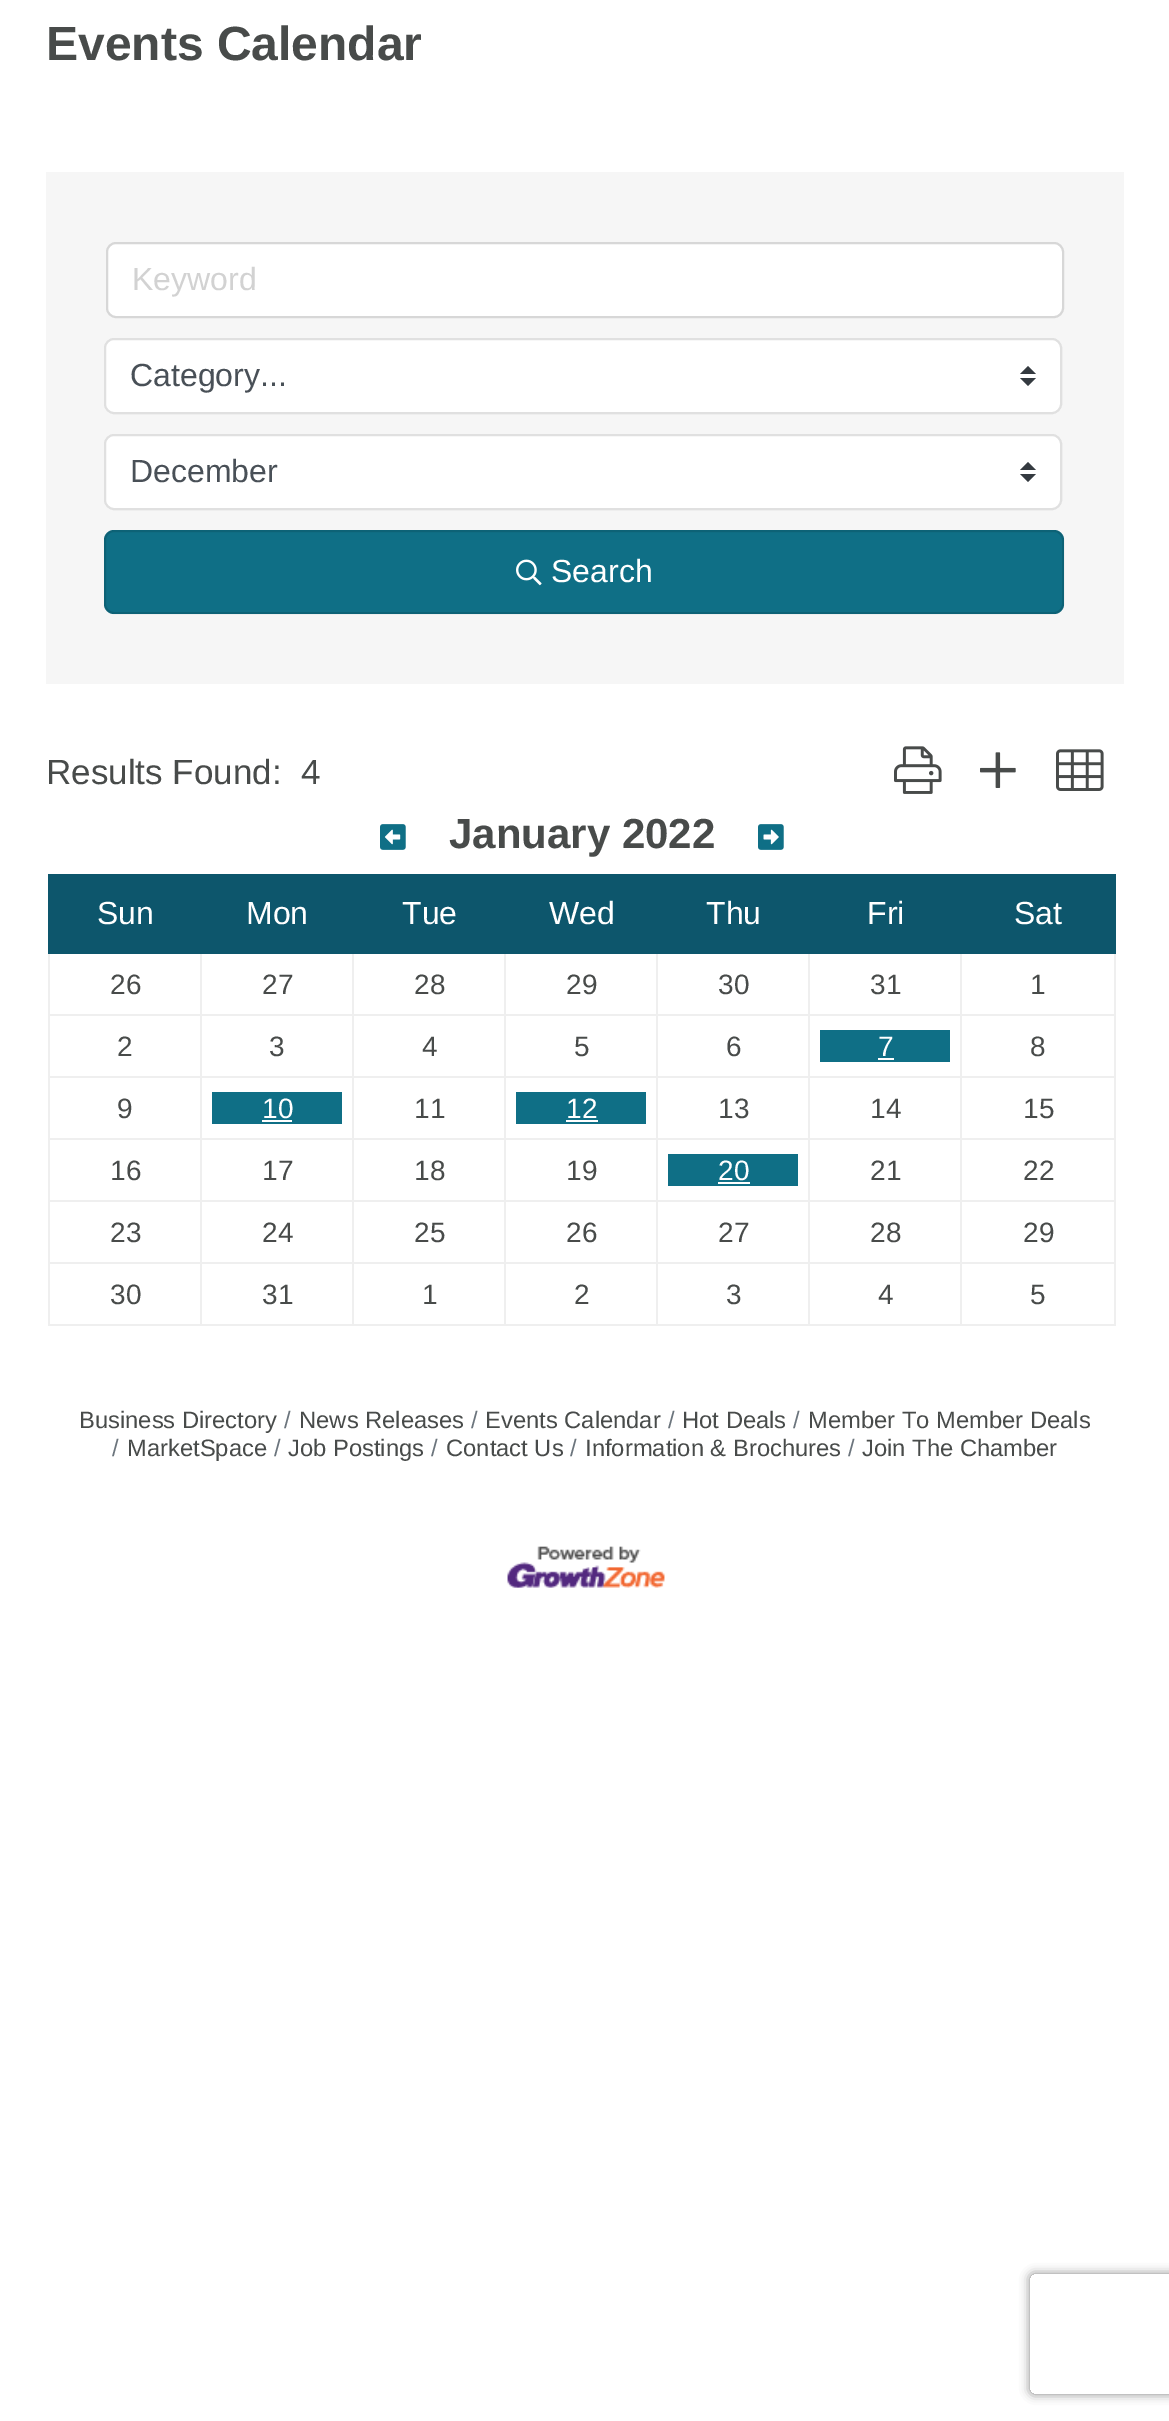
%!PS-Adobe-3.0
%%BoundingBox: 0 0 1169 2421
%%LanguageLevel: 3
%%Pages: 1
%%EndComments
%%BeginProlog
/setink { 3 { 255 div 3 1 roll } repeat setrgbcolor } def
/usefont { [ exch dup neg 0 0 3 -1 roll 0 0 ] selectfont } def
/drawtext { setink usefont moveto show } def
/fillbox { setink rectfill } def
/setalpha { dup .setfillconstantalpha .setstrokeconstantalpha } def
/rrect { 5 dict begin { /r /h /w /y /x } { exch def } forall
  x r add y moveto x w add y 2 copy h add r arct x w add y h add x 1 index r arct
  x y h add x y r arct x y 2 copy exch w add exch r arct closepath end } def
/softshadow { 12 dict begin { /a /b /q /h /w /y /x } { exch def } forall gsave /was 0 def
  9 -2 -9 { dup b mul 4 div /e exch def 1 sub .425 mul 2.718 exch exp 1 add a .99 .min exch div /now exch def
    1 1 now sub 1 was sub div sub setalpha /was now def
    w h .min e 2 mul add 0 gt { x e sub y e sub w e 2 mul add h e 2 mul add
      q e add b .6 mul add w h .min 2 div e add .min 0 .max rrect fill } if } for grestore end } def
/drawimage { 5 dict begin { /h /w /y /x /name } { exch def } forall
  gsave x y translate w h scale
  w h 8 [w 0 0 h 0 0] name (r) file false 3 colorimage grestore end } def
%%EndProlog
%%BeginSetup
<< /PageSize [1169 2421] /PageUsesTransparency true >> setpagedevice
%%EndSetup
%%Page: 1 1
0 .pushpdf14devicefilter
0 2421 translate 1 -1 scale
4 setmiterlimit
0 0 1169 2421 255 255 255 fillbox
(Events Calendar) 46 60 /LiberationSans-Bold 48 72 75 74 drawtext
46 172 1078 512 246 246 246 fillbox
255 255 255 setink
107 243 956 74 9 rrect gsave fill grestore
215 215 215 setink
2 setlinewidth
stroke
(Keyword) 132 290 /LiberationSans-Regular 32 210 210 210 drawtext
255 255 255 setink
104 338 958 76 10 rrect fill
52 58 64 setink
1028 366 moveto 1020 374 lineto 1036 374 lineto closepath 1028 386 moveto 1020 378 lineto 1036 378 lineto closepath fill
0.12 setalpha
0 0 0 setink
105 339 956 74 9 rrect stroke
1 setalpha
(Category...) 130 386 /LiberationSans-Regular 32 73 80 87 drawtext
255 255 255 setink
104 434 958 76 10 rrect fill
52 58 64 setink
1028 462 moveto 1020 470 lineto 1036 470 lineto closepath 1028 482 moveto 1020 474 lineto 1036 474 lineto closepath fill
0.12 setalpha
0 0 0 setink
105 435 956 74 9 rrect stroke
1 setalpha
(December) 130 482 /LiberationSans-Regular 32 73 80 87 drawtext
15 111 134 setink
104 530 960 84 10 rrect fill
0.12 setalpha
0 0 0 setink
105 531 958 82 9 rrect stroke
1 setalpha
(assets/img1.rgb) 516 559 26 27 drawimage
(Search) 551 582 /LiberationSans-Regular 32 255 255 255 drawtext
(Results Found:) 46 784 /LiberationSans-Regular 35 72 75 74 drawtext
(4) 301 784 /LiberationSans-Regular 35 72 75 74 drawtext
(assets/img2.rgb) 894 746 48 48 drawimage
(assets/img3.rgb) 980 752 36 36 drawimage
(assets/img4.rgb) 1056 749 48 42 drawimage
(assets/img5.rgb) 380 824 26 26 drawimage
(January 2022) 449 848 /LiberationSans-Bold 42 72 75 74 drawtext
(assets/img6.rgb) 758 824 26 26 drawimage
50 876 1064 76 13 86 108 fillbox
48 874 1068 2 13 86 108 fillbox
960 1014 156 2 239 239 239 fillbox
960 1076 156 2 239 239 239 fillbox
960 1138 156 2 239 239 239 fillbox
960 1200 156 2 239 239 239 fillbox
960 1262 156 2 239 239 239 fillbox
1114 1262 2 64 239 239 239 fillbox
1114 1200 2 64 239 239 239 fillbox
1114 1138 2 64 239 239 239 fillbox
1114 1076 2 64 239 239 239 fillbox
1114 952 2 126 239 239 239 fillbox
1114 874 2 80 13 86 108 fillbox
960 1324 156 2 239 239 239 fillbox
960 1262 2 64 239 239 239 fillbox
808 1262 154 2 239 239 239 fillbox
960 1200 2 64 239 239 239 fillbox
808 1200 154 2 239 239 239 fillbox
960 1138 2 64 239 239 239 fillbox
808 1138 154 2 239 239 239 fillbox
960 1076 2 64 239 239 239 fillbox
808 1076 154 2 239 239 239 fillbox
960 1014 2 64 239 239 239 fillbox
808 1014 154 2 239 239 239 fillbox
808 1324 154 2 239 239 239 fillbox
808 1262 2 64 239 239 239 fillbox
656 1262 154 2 239 239 239 fillbox
808 1200 2 64 239 239 239 fillbox
656 1200 154 2 239 239 239 fillbox
808 1138 2 64 239 239 239 fillbox
656 1138 154 2 239 239 239 fillbox
808 1076 2 64 239 239 239 fillbox
656 1076 154 2 239 239 239 fillbox
808 1014 2 64 239 239 239 fillbox
656 1014 154 2 239 239 239 fillbox
656 1324 154 2 239 239 239 fillbox
656 1262 2 64 239 239 239 fillbox
504 1262 154 2 239 239 239 fillbox
656 1200 2 64 239 239 239 fillbox
504 1200 154 2 239 239 239 fillbox
656 1138 2 64 239 239 239 fillbox
504 1138 154 2 239 239 239 fillbox
656 1076 2 64 239 239 239 fillbox
504 1076 154 2 239 239 239 fillbox
656 1014 2 64 239 239 239 fillbox
504 1014 154 2 239 239 239 fillbox
504 1324 154 2 239 239 239 fillbox
504 1262 2 64 239 239 239 fillbox
352 1262 154 2 239 239 239 fillbox
504 1200 2 64 239 239 239 fillbox
352 1200 154 2 239 239 239 fillbox
504 1138 2 64 239 239 239 fillbox
352 1138 154 2 239 239 239 fillbox
504 1076 2 64 239 239 239 fillbox
352 1076 154 2 239 239 239 fillbox
504 1014 2 64 239 239 239 fillbox
352 1014 154 2 239 239 239 fillbox
352 1324 154 2 239 239 239 fillbox
352 1262 2 64 239 239 239 fillbox
200 1262 154 2 239 239 239 fillbox
352 1200 2 64 239 239 239 fillbox
200 1200 154 2 239 239 239 fillbox
352 1138 2 64 239 239 239 fillbox
200 1138 154 2 239 239 239 fillbox
352 1076 2 64 239 239 239 fillbox
200 1076 154 2 239 239 239 fillbox
352 1014 2 64 239 239 239 fillbox
200 1014 154 2 239 239 239 fillbox
200 1324 154 2 239 239 239 fillbox
200 1262 2 64 239 239 239 fillbox
48 1262 154 2 239 239 239 fillbox
200 1200 2 64 239 239 239 fillbox
48 1200 154 2 239 239 239 fillbox
200 1138 2 64 239 239 239 fillbox
48 1138 154 2 239 239 239 fillbox
200 1076 2 64 239 239 239 fillbox
48 1076 154 2 239 239 239 fillbox
200 1014 2 64 239 239 239 fillbox
48 1014 154 2 239 239 239 fillbox
200 952 2 64 239 239 239 fillbox
352 952 2 64 239 239 239 fillbox
504 952 2 64 239 239 239 fillbox
656 952 2 64 239 239 239 fillbox
808 952 2 64 239 239 239 fillbox
960 952 2 64 239 239 239 fillbox
48 1324 154 2 239 239 239 fillbox
48 1262 2 64 239 239 239 fillbox
48 1200 2 64 239 239 239 fillbox
48 1138 2 64 239 239 239 fillbox
48 1076 2 64 239 239 239 fillbox
48 952 2 126 239 239 239 fillbox
48 952 1068 2 13 86 108 fillbox
48 874 2 80 13 86 108 fillbox
(Sun) 97 924 /LiberationSans-Regular 32 255 255 255 drawtext
(Mon) 246 924 /LiberationSans-Regular 32 255 255 255 drawtext
(Tue) 402 924 /LiberationSans-Regular 32 255 255 255 drawtext
(Wed) 549 924 /LiberationSans-Regular 32 255 255 255 drawtext
(Thu) 706 924 /LiberationSans-Regular 32 255 255 255 drawtext
(Fri) 867 924 /LiberationSans-Regular 32 255 255 255 drawtext
(Sat) 1014 924 /LiberationSans-Regular 32 255 255 255 drawtext
(26) 110 994 /LiberationSans-Regular 28 72 75 74 drawtext
(27) 262 994 /LiberationSans-Regular 28 72 75 74 drawtext
(28) 414 994 /LiberationSans-Regular 28 72 75 74 drawtext
(29) 566 994 /LiberationSans-Regular 28 72 75 74 drawtext
(30) 718 994 /LiberationSans-Regular 28 72 75 74 drawtext
(31) 870 994 /LiberationSans-Regular 28 72 75 74 drawtext
(1) 1030 994 /LiberationSans-Regular 28 72 75 74 drawtext
(2) 117 1056 /LiberationSans-Regular 28 72 75 74 drawtext
(3) 269 1056 /LiberationSans-Regular 28 72 75 74 drawtext
(4) 422 1056 /LiberationSans-Regular 28 72 75 74 drawtext
(5) 574 1056 /LiberationSans-Regular 28 72 75 74 drawtext
(6) 726 1056 /LiberationSans-Regular 28 72 75 74 drawtext
820 1030 130 32 15 111 134 fillbox
(7) 878 1056 /LiberationSans-Regular 28 255 255 255 drawtext
878 1058 16 2 255 255 255 fillbox
(8) 1030 1056 /LiberationSans-Regular 28 72 75 74 drawtext
(9) 117 1118 /LiberationSans-Regular 28 72 75 74 drawtext
212 1092 130 32 15 111 134 fillbox
(10) 262 1118 /LiberationSans-Regular 28 255 255 255 drawtext
262 1120 30 2 255 255 255 fillbox
(11) 414 1118 /LiberationSans-Regular 28 72 75 74 drawtext
516 1092 130 32 15 111 134 fillbox
(12) 566 1118 /LiberationSans-Regular 28 255 255 255 drawtext
566 1120 32 2 255 255 255 fillbox
(13) 718 1118 /LiberationSans-Regular 28 72 75 74 drawtext
(14) 870 1118 /LiberationSans-Regular 28 72 75 74 drawtext
(15) 1023 1118 /LiberationSans-Regular 28 72 75 74 drawtext
(16) 110 1180 /LiberationSans-Regular 28 72 75 74 drawtext
(17) 262 1180 /LiberationSans-Regular 28 72 75 74 drawtext
(18) 414 1180 /LiberationSans-Regular 28 72 75 74 drawtext
(19) 566 1180 /LiberationSans-Regular 28 72 75 74 drawtext
668 1154 130 32 15 111 134 fillbox
(20) 718 1180 /LiberationSans-Regular 28 255 255 255 drawtext
718 1182 32 2 255 255 255 fillbox
(21) 870 1180 /LiberationSans-Regular 28 72 75 74 drawtext
(22) 1023 1180 /LiberationSans-Regular 28 72 75 74 drawtext
(23) 110 1242 /LiberationSans-Regular 28 72 75 74 drawtext
(24) 262 1242 /LiberationSans-Regular 28 72 75 74 drawtext
(25) 414 1242 /LiberationSans-Regular 28 72 75 74 drawtext
(26) 566 1242 /LiberationSans-Regular 28 72 75 74 drawtext
(27) 718 1242 /LiberationSans-Regular 28 72 75 74 drawtext
(28) 870 1242 /LiberationSans-Regular 28 72 75 74 drawtext
(29) 1023 1242 /LiberationSans-Regular 28 72 75 74 drawtext
(30) 110 1304 /LiberationSans-Regular 28 72 75 74 drawtext
(31) 262 1304 /LiberationSans-Regular 28 72 75 74 drawtext
(1) 422 1304 /LiberationSans-Regular 28 72 75 74 drawtext
(2) 574 1304 /LiberationSans-Regular 28 72 75 74 drawtext
(3) 726 1304 /LiberationSans-Regular 28 72 75 74 drawtext
(4) 878 1304 /LiberationSans-Regular 28 72 75 74 drawtext
(5) 1030 1304 /LiberationSans-Regular 28 72 75 74 drawtext
(Business Directory) 79 1428 /LiberationSans-Regular 23.75 72 75 74 drawtext
(/) 284 1428 /LiberationSans-Regular 23.75 108 117 125 drawtext
(News Releases) 299 1428 /LiberationSans-Regular 23.75 72 75 74 drawtext
(/) 471 1428 /LiberationSans-Regular 23.75 108 117 125 drawtext
(Events Calendar) 485 1428 /LiberationSans-Regular 23.75 72 75 74 drawtext
(/) 668 1428 /LiberationSans-Regular 23.75 108 117 125 drawtext
(Hot Deals) 682 1428 /LiberationSans-Regular 23.75 72 75 74 drawtext
(/) 793 1428 /LiberationSans-Regular 23.75 108 117 125 drawtext
(Member To Member Deals) 808 1428 /LiberationSans-Regular 23.75 72 75 74 drawtext
(/) 112 1456 /LiberationSans-Regular 23.75 108 117 125 drawtext
(MarketSpace) 127 1456 /LiberationSans-Regular 23.75 72 75 74 drawtext
(/) 274 1456 /LiberationSans-Regular 23.75 108 117 125 drawtext
(Job Postings) 288 1456 /LiberationSans-Regular 23.75 72 75 74 drawtext
(/) 431 1456 /LiberationSans-Regular 23.75 108 117 125 drawtext
(Contact Us) 446 1456 /LiberationSans-Regular 23.75 72 75 74 drawtext
(/) 570 1456 /LiberationSans-Regular 23.75 108 117 125 drawtext
(Information & Brochures) 585 1456 /LiberationSans-Regular 23.75 72 75 74 drawtext
(/) 848 1456 /LiberationSans-Regular 23.75 108 117 125 drawtext
(Join The Chamber) 862 1456 /LiberationSans-Regular 23.75 72 75 74 drawtext
(assets/img7.rgb) 507 1546 158 42 drawimage
gsave
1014 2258 moveto 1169 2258 lineto 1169 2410 lineto 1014 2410 lineto closepath 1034 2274 moveto 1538 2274 lineto 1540 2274 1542 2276 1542 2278 curveto 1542 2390 lineto 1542 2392 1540 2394 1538 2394 curveto 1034 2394 lineto 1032 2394 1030 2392 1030 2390 curveto 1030 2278 lineto 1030 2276 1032 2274 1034 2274 curveto closepath eoclip newpath
128 128 128 setink
1030 2274 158 120 4 5 1 softshadow
grestore
.poppdf14devicefilter showpage
%%EOF
